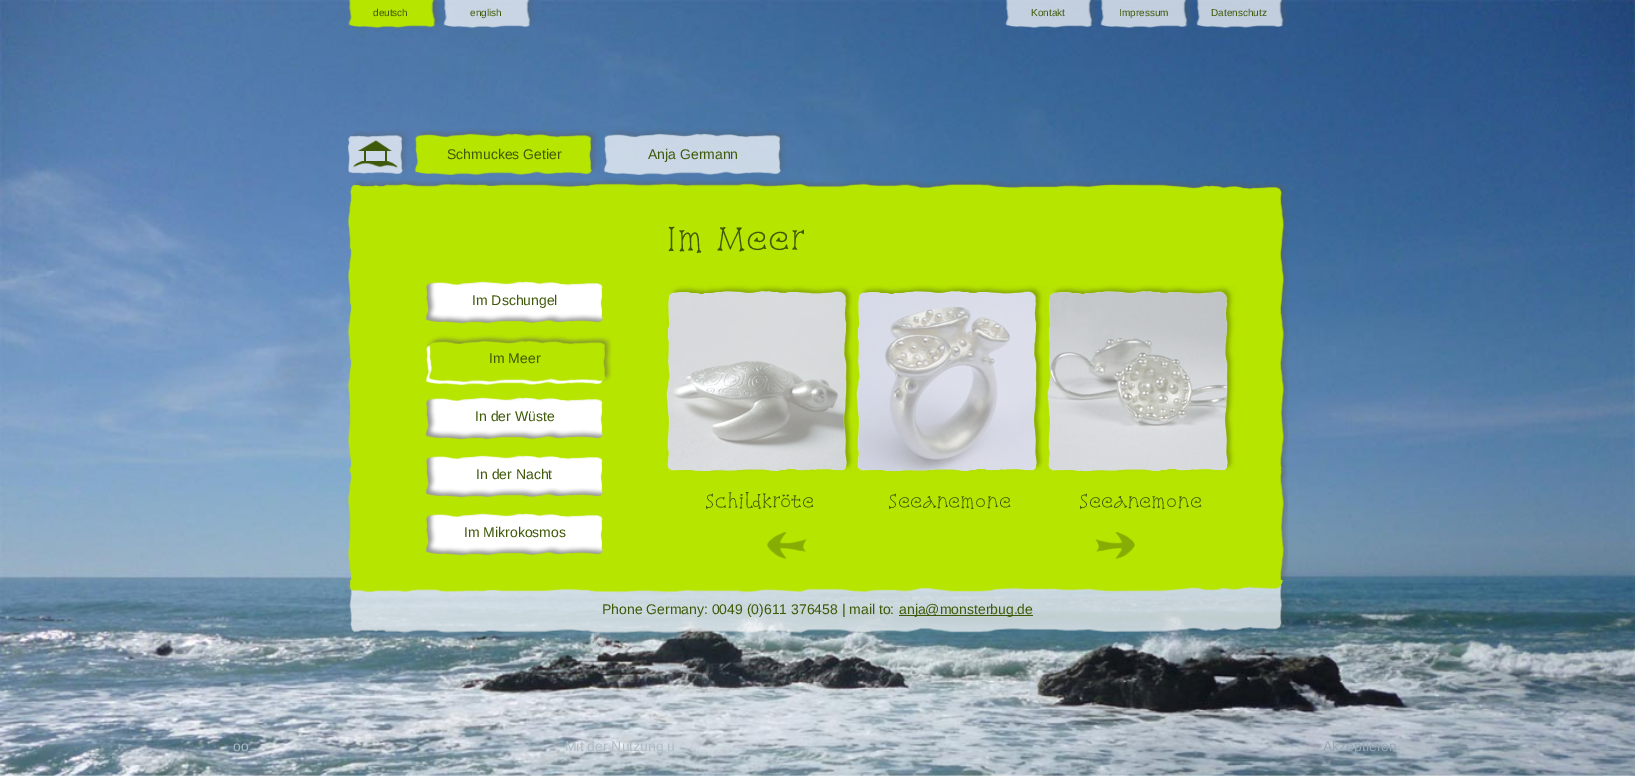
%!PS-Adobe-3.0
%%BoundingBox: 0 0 1635 776
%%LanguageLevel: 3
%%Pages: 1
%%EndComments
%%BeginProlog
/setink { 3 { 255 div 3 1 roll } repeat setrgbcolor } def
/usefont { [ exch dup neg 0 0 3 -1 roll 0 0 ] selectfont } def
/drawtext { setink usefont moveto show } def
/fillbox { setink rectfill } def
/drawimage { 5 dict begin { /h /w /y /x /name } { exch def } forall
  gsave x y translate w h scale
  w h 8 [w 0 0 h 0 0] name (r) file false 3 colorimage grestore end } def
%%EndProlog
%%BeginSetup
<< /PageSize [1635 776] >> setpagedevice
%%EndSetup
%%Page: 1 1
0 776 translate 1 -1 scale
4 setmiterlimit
0 0 1635 776 255 255 255 fillbox
(assets/img1.rgb) 0 0 1635 776 drawimage
(assets/img2.rgb) 348 0 92 28 drawimage
(deutsch) 373 16 /LiberationSans-Regular 10 62 89 7 drawtext
(assets/img3.rgb) 443 0 92 28 drawimage
(english) 470 16 /LiberationSans-Regular 10 62 89 7 drawtext
(assets/img4.rgb) 1005 0 92 28 drawimage
(Kontakt) 1031 16 /LiberationSans-Regular 10 62 89 7 drawtext
(assets/img5.rgb) 1100 0 92 28 drawimage
(Impressum) 1119 16 /LiberationSans-Regular 10 62 89 7 drawtext
(assets/img6.rgb) 1196 0 92 28 drawimage
(Datenschutz) 1211 16 /LiberationSans-Regular 10 62 89 7 drawtext
(assets/img7.rgb) 348 130 60 44 drawimage
(assets/img8.rgb) 414 128 183 47 drawimage
(Schmuckes Getier) 447 159 /LiberationSans-Regular 14 62 89 7 drawtext
(assets/img9.rgb) 603 128 183 47 drawimage
(Anja Germann) 648 159 /LiberationSans-Regular 14 62 89 7 drawtext
(assets/img10.rgb) 350 179 937 18 drawimage
(assets/img11.rgb) 348 197 940 383 drawimage
(assets/img12.rgb) 425 281 178 43 drawimage
(Im Dschungel) 472 305 /LiberationSans-Regular 14 62 89 7 drawtext
(assets/img13.rgb) 425 335 187 51 drawimage
(Im Meer) 489 363 /LiberationSans-Regular 14 62 89 7 drawtext
(assets/img12.rgb) 425 397 178 43 drawimage
(In der Wüste) 475 421 /LiberationSans-Regular 14 62 89 7 drawtext
(assets/img12.rgb) 425 455 178 43 drawimage
(In der Nacht) 476 479 /LiberationSans-Regular 14 62 89 7 drawtext
(assets/img12.rgb) 425 513 178 43 drawimage
(Im Mikrokosmos) 464 537 /LiberationSans-Regular 14 62 89 7 drawtext
(Im Meer) 666 251 /SnowburstOne-Regular 32 62 89 7 drawtext
(assets/img15.rgb) 667 291 186 182 drawimage
(assets/img14.rgb) 666 285 190 190 drawimage
(Schildkröte) 705 508 /SnowburstOne-Regular 18 62 89 7 drawtext
(assets/img17.rgb) 857 291 186 182 drawimage
(assets/img16.rgb) 856 285 191 190 drawimage
(Seeanemone) 888 508 /SnowburstOne-Regular 18 62 89 7 drawtext
(assets/img19.rgb) 1048 291 186 182 drawimage
(assets/img18.rgb) 1047 285 189 190 drawimage
(Seeanemone) 1079 508 /SnowburstOne-Regular 18 62 89 7 drawtext
(assets/img20.rgb) 767 532 40 27 drawimage
(assets/img21.rgb) 1095 532 40 27 drawimage
(assets/img22.rgb) 349 580 938 54 drawimage
(Phone Germany: 0049 \(0\)611 376458 | mail to:) 602 614 /LiberationSans-Regular 14 62 89 7 drawtext
899 615 134 1 62 89 7 fillbox
(anja@monsterbug.de) 899 614 /LiberationSans-Regular 14 62 89 7 drawtext
(oo) 233 751 /LiberationSans-Regular 14 174 187 197 drawtext
(. Mit der Nutzung u) 557 751 /LiberationSans-Regular 14 174 187 197 drawtext
(Akzeptieren) 1323 751 /LiberationSans-Regular 14 152 167 181 drawtext
showpage
%%EOF
